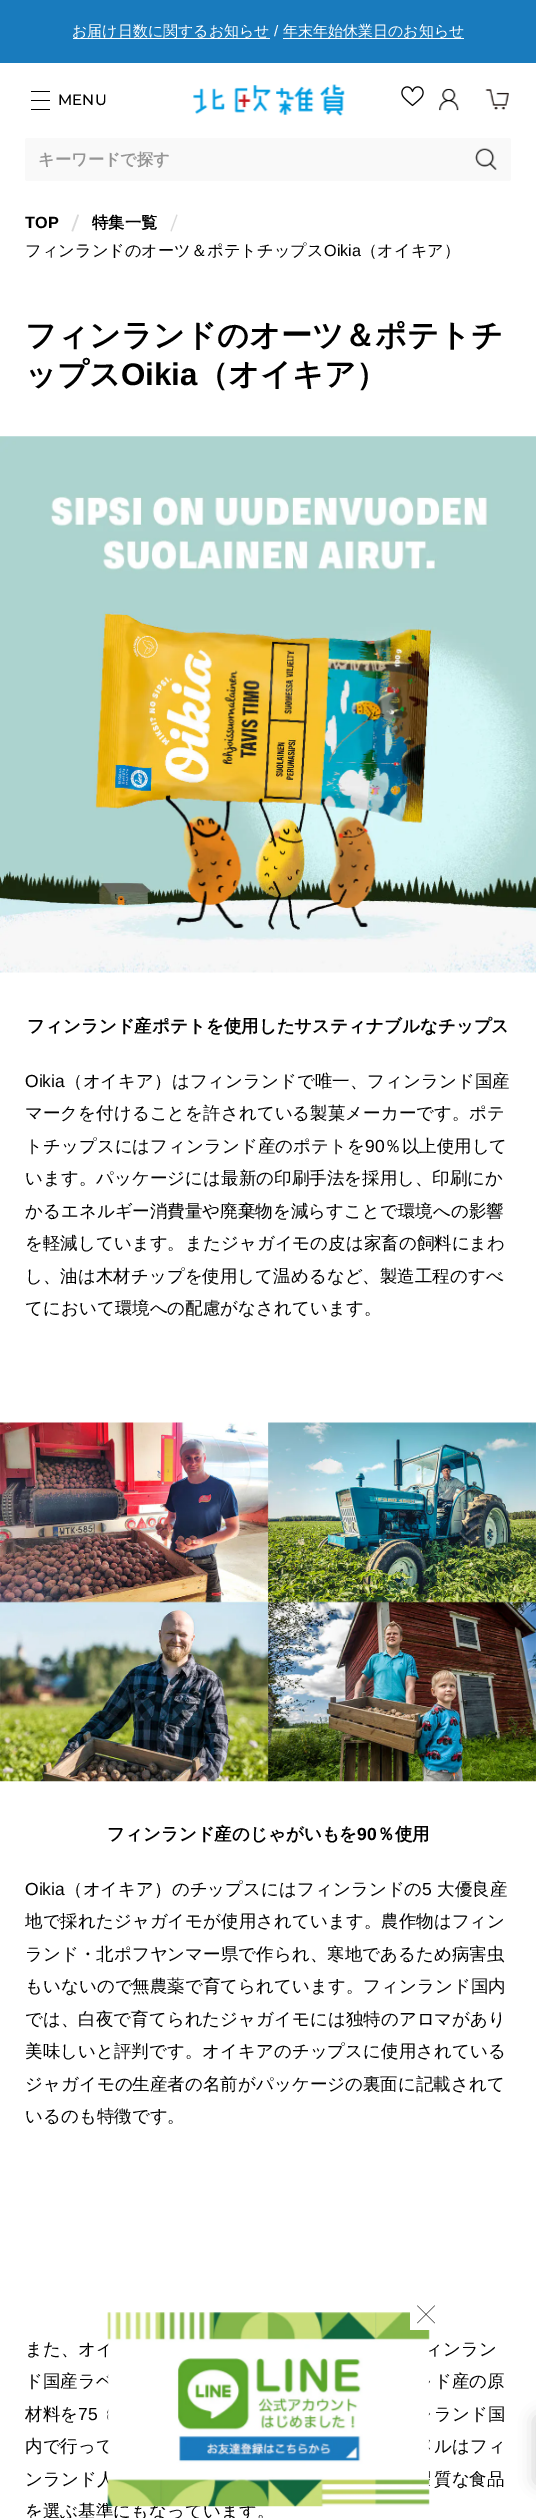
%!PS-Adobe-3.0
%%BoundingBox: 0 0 536 2518
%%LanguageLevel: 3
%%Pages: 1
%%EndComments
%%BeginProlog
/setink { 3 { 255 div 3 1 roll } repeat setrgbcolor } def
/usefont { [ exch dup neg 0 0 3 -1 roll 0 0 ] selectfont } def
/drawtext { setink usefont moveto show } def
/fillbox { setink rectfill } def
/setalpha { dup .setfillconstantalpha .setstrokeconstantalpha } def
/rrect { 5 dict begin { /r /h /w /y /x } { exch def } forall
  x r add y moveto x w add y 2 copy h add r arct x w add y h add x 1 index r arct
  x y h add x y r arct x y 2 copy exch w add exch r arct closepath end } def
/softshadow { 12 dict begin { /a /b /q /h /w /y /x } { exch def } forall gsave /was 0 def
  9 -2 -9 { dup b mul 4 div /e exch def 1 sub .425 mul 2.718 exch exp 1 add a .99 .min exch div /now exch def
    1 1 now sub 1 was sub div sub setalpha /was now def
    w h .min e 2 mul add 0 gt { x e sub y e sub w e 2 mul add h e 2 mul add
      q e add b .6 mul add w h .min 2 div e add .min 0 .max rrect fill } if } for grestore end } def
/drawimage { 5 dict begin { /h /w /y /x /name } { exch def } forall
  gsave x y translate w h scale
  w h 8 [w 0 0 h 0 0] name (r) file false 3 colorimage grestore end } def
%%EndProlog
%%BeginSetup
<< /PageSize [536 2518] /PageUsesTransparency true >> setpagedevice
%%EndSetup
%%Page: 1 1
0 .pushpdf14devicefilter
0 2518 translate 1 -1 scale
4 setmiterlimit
0 0 536 2518 255 255 255 fillbox
0 0 536 63 25 123 189 fillbox
73 38 197 1 255 255 255 fillbox
(お届け日数に関するお知らせ) 72 36 /WenQuanYiZenHei-Medium 15 255 255 255 drawtext
(/) 274 36 /LiberationSans-Regular 15 255 255 255 drawtext
283 38 181 1 255 255 255 fillbox
(年末年始休業日のお知らせ) 283 36 /WenQuanYiZenHei-Medium 15 255 255 255 drawtext
31 91 19 1 0 0 0 fillbox
31 100 19 1 0 0 0 fillbox
31 109 19 1 0 0 0 fillbox
(MENU) 58 105 /Montserrat-Medium 15 0 0 0 drawtext
(assets/img1.rgb) 193 84 152 32 drawimage
(assets/img2.rgb) 401 86 23 21 drawimage
(assets/img3.rgb) 439 88 20 23 drawimage
(assets/img4.rgb) 485 89 24 21 drawimage
249 249 249 setink
25 138 486 43 2.5 rrect fill
(キーワードで探す) 38 165 /WenQuanYiZenHei-Bold 16.25 149 149 149 drawtext
(assets/img5.rgb) 475 148 22 22 drawimage
(TOP) 25 228 /LiberationSans-Bold 16.25 0 0 0 drawtext
217 217 217 setink
77.5 214.5 moveto 79 215 lineto 73 231.5 lineto 71.5 231 lineto closepath fill
(特集一覧) 92 228 /WenQuanYiZenHei-Bold 16.25 0 0 0 drawtext
217 217 217 setink
176.5 214.5 moveto 177.5 215 lineto 171.5 231.5 lineto 170.5 231 lineto closepath fill
(フィンランドのオーツ＆ポテトチップス) 25 256 /WenQuanYiZenHei-Medium 16.25 0 0 0 drawtext
(Oikia) 324 256 /LiberationSans-Regular 16.25 0 0 0 drawtext
(（オイキア）) 361 256 /WenQuanYiZenHei-Medium 16.25 0 0 0 drawtext
(フィンランドのオーツ＆ポテトチ) 25 346 /WenQuanYiZenHei-Bold 31.25 0 0 0 drawtext
(ップス) 25 385 /WenQuanYiZenHei-Bold 31.25 0 0 0 drawtext
(Oikia) 121 385 /LiberationSans-Bold 31.25 0 0 0 drawtext
(（オイキア）) 197 385 /WenQuanYiZenHei-Bold 31.25 0 0 0 drawtext
(assets/img6.rgb) 0 436 536 537 drawimage
(フィンランド産ポテトを使用したサスティナブルなチップス) 27 1032 /WenQuanYiZenHei-Bold 17.5 0 0 0 drawtext
(Oikia) 25 1087 /LiberationSans-Regular 17.5 0 0 0 drawtext
(（オイキア）はフィンランドで唯一、フィンランド国産) 65 1087 /WenQuanYiZenHei-Medium 17.5 0 0 0 drawtext
(マークを付けることを許されている製菓メーカーです。ポテ) 25 1119 /WenQuanYiZenHei-Medium 17.5 0 0 0 drawtext
(トチップスにはフィンランド産のポテトを) 25 1152 /WenQuanYiZenHei-Medium 17.5 0 0 0 drawtext
(90) 365 1152 /LiberationSans-Regular 17.5 0 0 0 drawtext
(％以上使用して) 384 1152 /WenQuanYiZenHei-Medium 17.5 0 0 0 drawtext
(います。パッケージには最新の印刷手法を採用し、印刷にか) 25 1184 /WenQuanYiZenHei-Medium 17.5 0 0 0 drawtext
(かるエネルギー消費量や廃棄物を減らすことで環境への影響) 25 1217 /WenQuanYiZenHei-Medium 17.5 0 0 0 drawtext
(を軽減しています。またジャガイモの皮は家畜の飼料にまわ) 25 1249 /WenQuanYiZenHei-Medium 17.5 0 0 0 drawtext
(し、油は木材チップを使用して温めるなど、製造工程のすべ) 25 1282 /WenQuanYiZenHei-Medium 17.5 0 0 0 drawtext
(てにおいて環境への配慮がなされています。) 25 1314 /WenQuanYiZenHei-Medium 17.5 0 0 0 drawtext
(assets/img7.rgb) 0 1422 536 360 drawimage
(フィンランド産のじゃがいもを) 107 1840 /WenQuanYiZenHei-Bold 17.5 0 0 0 drawtext
(90) 357 1840 /LiberationSans-Bold 17.5 0 0 0 drawtext
(％使用) 377 1840 /WenQuanYiZenHei-Bold 17.5 0 0 0 drawtext
(Oikia) 25 1895 /LiberationSans-Regular 17.5 0 0 0 drawtext
(（オイキア）のチップスにはフィンランドの) 65 1895 /WenQuanYiZenHei-Medium 17.5 0 0 0 drawtext
(5) 422 1895 /LiberationSans-Regular 17.5 0 0 0 drawtext
(大優良産) 437 1895 /WenQuanYiZenHei-Medium 17.5 0 0 0 drawtext
(地で採れたジャガイモが使用されています。農作物はフィン) 25 1927 /WenQuanYiZenHei-Medium 17.5 0 0 0 drawtext
(ランド・北ポフヤンマー県で作られ、寒地であるため病害虫) 25 1960 /WenQuanYiZenHei-Medium 17.5 0 0 0 drawtext
(もいないので無農薬で育てられています。フィンランド国内) 25 1992 /WenQuanYiZenHei-Medium 17.5 0 0 0 drawtext
(では、白夜で育てられたジャガイモには独特のアロマがあり) 25 2025 /WenQuanYiZenHei-Medium 17.5 0 0 0 drawtext
(美味しいと評判です。オイキアのチップスに使用されている) 25 2057 /WenQuanYiZenHei-Medium 17.5 0 0 0 drawtext
(ジャガイモの生産者の名前がパッケージの裏面に記載されて) 25 2090 /WenQuanYiZenHei-Medium 17.5 0 0 0 drawtext
(いるのも特徴です。) 25 2122 /WenQuanYiZenHei-Medium 17.5 0 0 0 drawtext
(また、オイ) 25 2355 /WenQuanYiZenHei-Medium 17.5 0 0 0 drawtext
(ィンラン) 425 2355 /WenQuanYiZenHei-Medium 17.5 0 0 0 drawtext
(ド国産ラベ) 25 2387 /WenQuanYiZenHei-Medium 17.5 0 0 0 drawtext
(ド産の原) 434 2387 /WenQuanYiZenHei-Medium 17.5 0 0 0 drawtext
(材料を) 25 2420 /WenQuanYiZenHei-Medium 17.5 0 0 0 drawtext
(75) 78 2420 /LiberationSans-Regular 17.5 0 0 0 drawtext
(ランド国) 434 2420 /WenQuanYiZenHei-Medium 17.5 0 0 0 drawtext
(内で行って) 25 2452 /WenQuanYiZenHei-Medium 17.5 0 0 0 drawtext
(ルはフィ) 434 2452 /WenQuanYiZenHei-Medium 17.5 0 0 0 drawtext
(ンランド人) 25 2485 /WenQuanYiZenHei-Medium 17.5 0 0 0 drawtext
(質な食品) 434 2485 /WenQuanYiZenHei-Medium 17.5 0 0 0 drawtext
(を選ぶ基準にもなっています。) 25 2517 /WenQuanYiZenHei-Medium 17.5 0 0 0 drawtext
(assets/img9.rgb) 107 2312 323 195 drawimage
410 2312 20 18 255 255 255 fillbox
(assets/img8.rgb) 417 2305 18 19 drawimage
117 117 117 setink
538 2419 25 62 0 9 0.5 softshadow
.poppdf14devicefilter showpage
%%EOF
